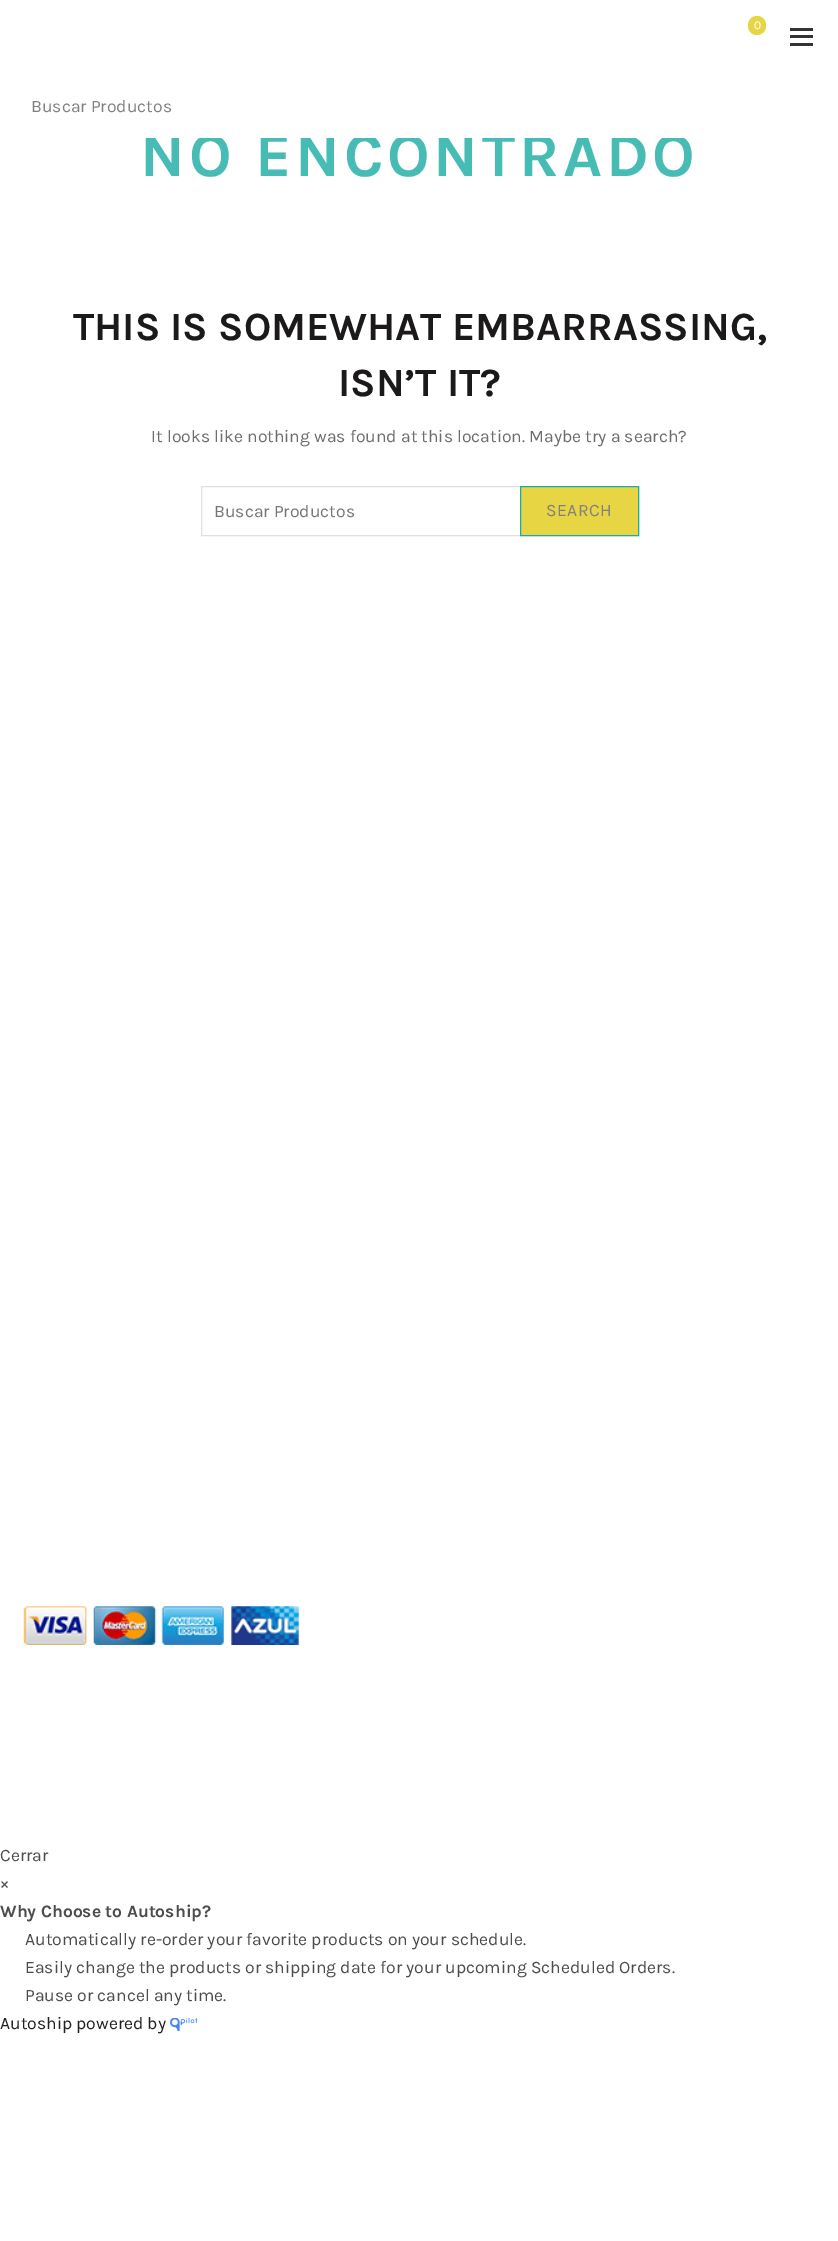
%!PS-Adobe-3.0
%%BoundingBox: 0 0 838 2241
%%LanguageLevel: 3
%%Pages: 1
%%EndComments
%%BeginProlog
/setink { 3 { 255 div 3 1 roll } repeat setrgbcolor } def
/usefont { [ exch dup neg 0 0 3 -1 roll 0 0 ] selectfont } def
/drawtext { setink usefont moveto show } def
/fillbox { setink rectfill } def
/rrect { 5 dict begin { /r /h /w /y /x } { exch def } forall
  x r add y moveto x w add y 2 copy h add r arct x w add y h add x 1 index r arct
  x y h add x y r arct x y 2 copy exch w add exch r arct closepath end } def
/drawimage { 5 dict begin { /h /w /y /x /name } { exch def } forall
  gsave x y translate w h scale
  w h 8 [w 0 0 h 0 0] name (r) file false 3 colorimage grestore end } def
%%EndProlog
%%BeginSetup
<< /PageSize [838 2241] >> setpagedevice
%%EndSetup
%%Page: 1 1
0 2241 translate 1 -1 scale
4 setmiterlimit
0 0 838 2241 255 255 255 fillbox
/Karla-Bold 62.5 usefont
70 188 180 setink
140 176 moveto 3.75 0 (NO ENCONTRADO) ashow
145 134 540 4 255 255 255 fillbox
232 213 67 setink
748 16 18 19 9 rrect fill
(0) 754 29 /Karla-Regular 12 255 255 255 drawtext
790 35 23 3 51 51 51 fillbox
790 28 23 3 51 51 51 fillbox
790 43 23 3 51 51 51 fillbox
(Buscar Productos) 31 112 /Karla-Regular 17.5 128 128 128 drawtext
(THIS IS SOMEWHAT EMBARRASSING,) 73 340 /Karla-Bold 40 27 25 25 drawtext
(ISN’T IT?) 338 396 /Karla-Bold 40 27 25 25 drawtext
(It looks like nothing was found at this location. Maybe try a search?) 151 442 /Karla-Regular 17.5 108 108 108 drawtext
224 224 224 setink
201.5 486.5 437 49 rectstroke
(Buscar Productos) 214 517 /Karla-Regular 17.5 117 117 117 drawtext
232 213 67 setink
520.5 486.5 moveto 638.5 486.5 lineto 638.5 535.5 lineto 520.5 535.5 lineto closepath gsave fill grestore
26 173 163 setink
stroke
128 128 128 setink
546 516 moveto 0.5 0 (SEARCH) ashow
(assets/img1.rgb) 23 1606 277 39 drawimage
(Cerrar) 0 1861 /Karla-Regular 17.5 76 76 76 drawtext
(×) 0 1889 /Karla-Regular 17.5 76 76 76 drawtext
(Why Choose to Autoship?) 0 1917 /Karla-Bold 17.5 76 76 76 drawtext
(Automatically re-order your favorite products on your schedule.) 25 1945 /Karla-Regular 17.5 76 76 76 drawtext
(Easily change the products or shipping date for your upcoming Scheduled Orders.) 25 1973 /Karla-Regular 17.5 76 76 76 drawtext
(Pause or cancel any time.) 25 2001 /Karla-Regular 17.5 76 76 76 drawtext
(Autoship powered by) 0 2029 /Karla-Regular 17.5 32 32 32 drawtext
(assets/img2.rgb) 170 2018 28 13 drawimage
showpage
%%EOF
